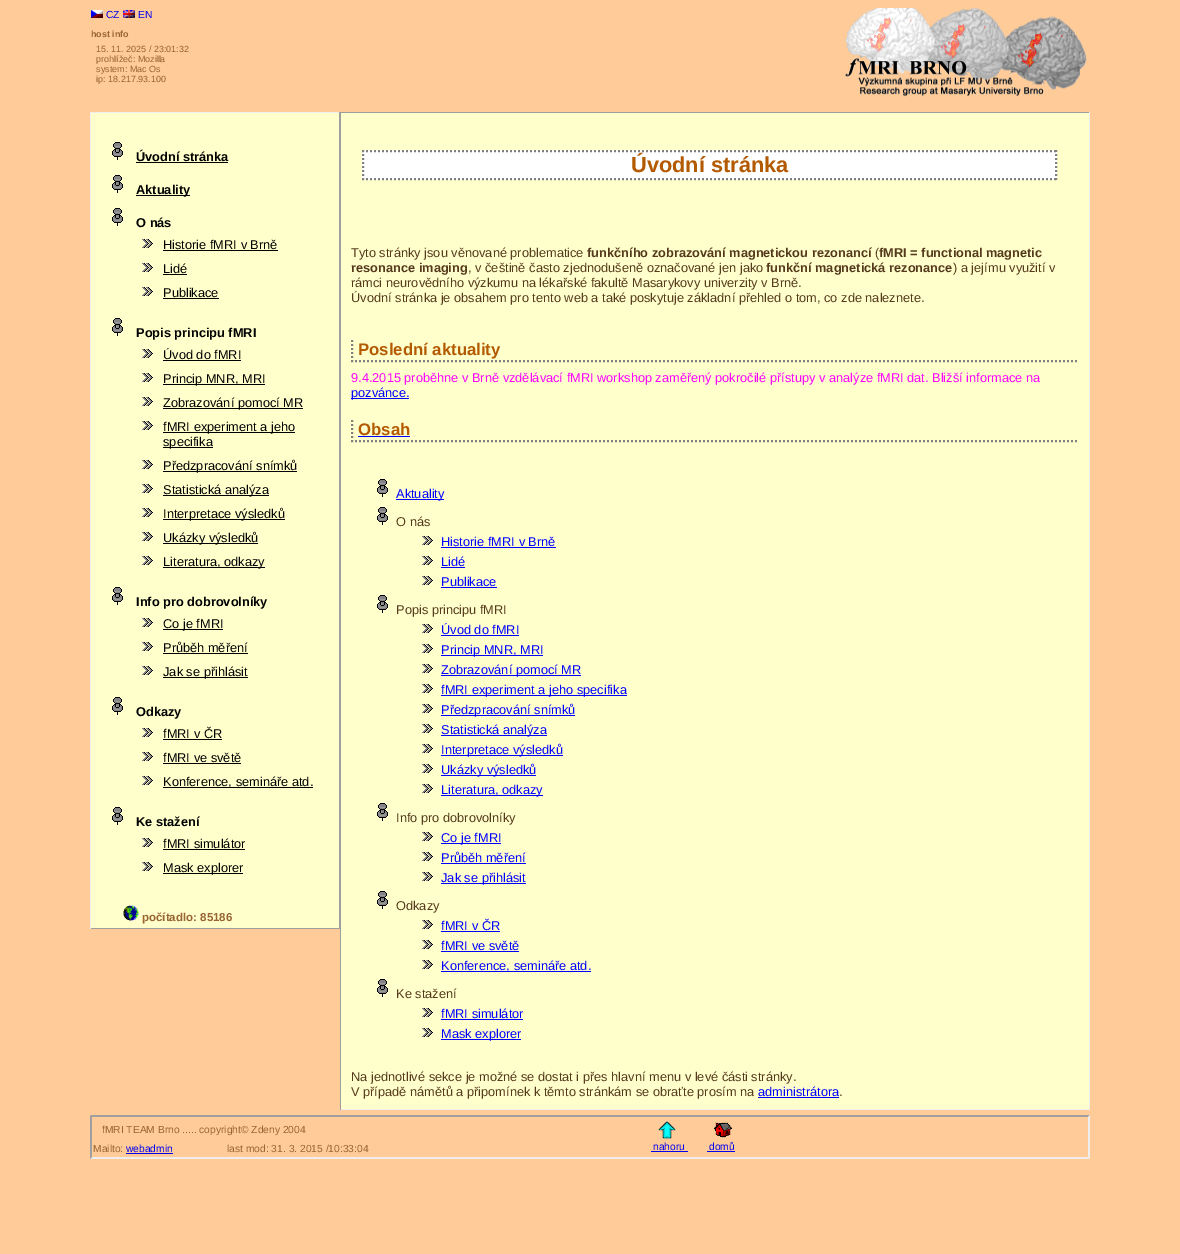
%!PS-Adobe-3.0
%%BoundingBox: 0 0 1180 1254
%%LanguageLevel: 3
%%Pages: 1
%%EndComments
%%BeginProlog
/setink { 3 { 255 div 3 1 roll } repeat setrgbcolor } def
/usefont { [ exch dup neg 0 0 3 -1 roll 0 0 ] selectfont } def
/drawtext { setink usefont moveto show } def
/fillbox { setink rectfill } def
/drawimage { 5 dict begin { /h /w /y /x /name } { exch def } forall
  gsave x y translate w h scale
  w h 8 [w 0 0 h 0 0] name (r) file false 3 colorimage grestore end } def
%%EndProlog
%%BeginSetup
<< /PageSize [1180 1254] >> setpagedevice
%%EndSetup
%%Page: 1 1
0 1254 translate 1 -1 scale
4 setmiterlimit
0 0 1180 1254 255 204 153 fillbox
(assets/img1.rgb) 91 10 12 8 drawimage
(CZ) 106 18 /LiberationSans-Regular 10.25 0 0 238 drawtext
(assets/img2.rgb) 123 10 12 8 drawimage
(EN) 138 18 /LiberationSans-Regular 10.25 0 0 238 drawtext
(assets/img3.rgb) 845 8 242 89 drawimage
(host info) 91 37 /LiberationSans-Bold 9 153 102 51 drawtext
(15. 11. 2025 / 23:01:32) 96 52 /LiberationSans-Regular 9 153 102 51 drawtext
(prohlížeč: Mozilla) 96 62 /LiberationSans-Regular 9 153 102 51 drawtext
(system: Mac Os) 96 72 /LiberationSans-Regular 9 153 102 51 drawtext
(ip: 18.217.93.100) 96 82 /LiberationSans-Regular 9 153 102 51 drawtext
91 113 248 815 255 255 204 fillbox
90 112 250 1 238 238 238 fillbox
339 112 1 817 159 159 159 fillbox
90 928 250 1 159 159 159 fillbox
90 112 1 817 238 238 238 fillbox
(assets/img4.rgb) 112 142 11 18 drawimage
(Úvodní stránka) 136 161 /LiberationSans-Bold 12.8 0 0 0 drawtext
136 162 92 1 0 0 0 fillbox
(assets/img4.rgb) 112 175 11 18 drawimage
136 195 54 1 0 0 0 fillbox
(Aktuality) 136 194 /LiberationSans-Bold 12.8 0 0 0 drawtext
(assets/img4.rgb) 112 208 11 18 drawimage
(O nás) 136 227 /LiberationSans-Bold 12.8 0 0 0 drawtext
(assets/img5.rgb) 142 239 11 9 drawimage
(Historie fMRI v Brně) 163 249 /LiberationSans-Regular 12.8 0 0 0 drawtext
163 250 115 1 0 0 0 fillbox
(assets/img5.rgb) 142 263 11 9 drawimage
(Lidé) 163 273 /LiberationSans-Regular 12.8 0 0 0 drawtext
163 274 24 1 0 0 0 fillbox
(assets/img5.rgb) 142 287 11 9 drawimage
(Publikace) 163 297 /LiberationSans-Regular 12.8 0 0 0 drawtext
163 298 56 1 0 0 0 fillbox
(assets/img4.rgb) 112 318 11 18 drawimage
(Popis principu fMRI) 136 337 /LiberationSans-Bold 12.8 0 0 0 drawtext
(assets/img5.rgb) 142 349 11 9 drawimage
(Úvod do fMRI) 163 359 /LiberationSans-Regular 12.8 0 0 0 drawtext
163 360 78 1 0 0 0 fillbox
(assets/img5.rgb) 142 373 11 9 drawimage
163 384 102 1 0 0 0 fillbox
(Princip MNR, MRI) 163 383 /LiberationSans-Regular 12.8 0 0 0 drawtext
(assets/img5.rgb) 142 397 11 9 drawimage
163 408 140 1 0 0 0 fillbox
(Zobrazování pomocí MR) 163 407 /LiberationSans-Regular 12.8 0 0 0 drawtext
(assets/img5.rgb) 142 421 11 9 drawimage
163 432 132 1 0 0 0 fillbox
(fMRI experiment a jeho) 163 431 /LiberationSans-Regular 12.8 0 0 0 drawtext
163 447 50 1 0 0 0 fillbox
(specifika) 163 446 /LiberationSans-Regular 12.8 0 0 0 drawtext
(assets/img5.rgb) 142 460 11 9 drawimage
163 471 134 1 0 0 0 fillbox
(Předzpracování snímků) 163 470 /LiberationSans-Regular 12.8 0 0 0 drawtext
(assets/img5.rgb) 142 484 11 9 drawimage
163 495 106 1 0 0 0 fillbox
(Statistická analýza) 163 494 /LiberationSans-Regular 12.8 0 0 0 drawtext
(assets/img5.rgb) 142 508 11 9 drawimage
163 519 122 1 0 0 0 fillbox
(Interpretace výsledků) 163 518 /LiberationSans-Regular 12.8 0 0 0 drawtext
(assets/img5.rgb) 142 532 11 9 drawimage
163 543 95 1 0 0 0 fillbox
(Ukázky výsledků) 163 542 /LiberationSans-Regular 12.8 0 0 0 drawtext
(assets/img5.rgb) 142 556 11 9 drawimage
163 567 102 1 0 0 0 fillbox
(Literatura, odkazy) 163 566 /LiberationSans-Regular 12.8 0 0 0 drawtext
(assets/img4.rgb) 112 587 11 18 drawimage
(Info pro dobrovolníky) 136 606 /LiberationSans-Bold 12.8 0 0 0 drawtext
(assets/img5.rgb) 142 618 11 9 drawimage
163 629 60 1 0 0 0 fillbox
(Co je fMRI) 163 628 /LiberationSans-Regular 12.8 0 0 0 drawtext
(assets/img5.rgb) 142 642 11 9 drawimage
(Průběh měření) 163 652 /LiberationSans-Regular 12.8 0 0 0 drawtext
163 653 85 1 0 0 0 fillbox
(assets/img5.rgb) 142 666 11 9 drawimage
163 677 85 1 0 0 0 fillbox
(Jak se přihlásit) 163 676 /LiberationSans-Regular 12.8 0 0 0 drawtext
(assets/img4.rgb) 112 697 11 18 drawimage
(Odkazy) 136 716 /LiberationSans-Bold 12.8 0 0 0 drawtext
(assets/img5.rgb) 142 728 11 9 drawimage
(fMRI v ČR) 163 738 /LiberationSans-Regular 12.8 0 0 0 drawtext
163 739 59 1 0 0 0 fillbox
(assets/img5.rgb) 142 752 11 9 drawimage
(fMRI ve světě) 163 762 /LiberationSans-Regular 12.8 0 0 0 drawtext
163 763 78 1 0 0 0 fillbox
(assets/img5.rgb) 142 776 11 9 drawimage
163 787 150 1 0 0 0 fillbox
(Konference, semináře atd.) 163 786 /LiberationSans-Regular 12.8 0 0 0 drawtext
(assets/img4.rgb) 112 807 11 18 drawimage
(Ke stažení) 136 826 /LiberationSans-Bold 12.8 0 0 0 drawtext
(assets/img5.rgb) 142 838 11 9 drawimage
(fMRI simulátor) 163 848 /LiberationSans-Regular 12.8 0 0 0 drawtext
163 849 82 1 0 0 0 fillbox
(assets/img5.rgb) 142 862 11 9 drawimage
163 873 80 1 0 0 0 fillbox
(Mask explorer) 163 872 /LiberationSans-Regular 12.8 0 0 0 drawtext
(assets/img6.rgb) 123 905 16 16 drawimage
(počítadlo: 85186) 142 921 /LiberationSans-Bold 11.5 153 102 51 drawtext
341 113 748 996 255 255 204 fillbox
340 112 750 1 159 159 159 fillbox
1089 112 1 998 238 238 238 fillbox
340 1109 750 1 238 238 238 fillbox
340 112 1 998 159 159 159 fillbox
362 150 695 30 255 255 255 fillbox
128 128 128 setink
2 setlinewidth
[2 2] 0 setdash
362 151 moveto 1057 151 lineto stroke
1056 150 moveto 1056 180 lineto stroke
362 179 moveto 1057 179 lineto stroke
363 150 moveto 363 180 lineto stroke
(Úvodní stránka) 631 172 /LiberationSans-Bold 21.75 179 90 0 drawtext
(Tyto stránky jsou věnované problematice) 351 257 /LiberationSans-Regular 12.8 85 57 28 drawtext
(funkčního zobrazování magnetickou rezonancí) 587 257 /LiberationSans-Bold 12.8 85 57 28 drawtext
(\() 875 257 /LiberationSans-Regular 12.8 85 57 28 drawtext
(fMRI = functional magnetic) 879 257 /LiberationSans-Bold 12.8 85 57 28 drawtext
(resonance imaging) 351 272 /LiberationSans-Bold 12.8 85 57 28 drawtext
(, v češtině často zjednodušeně označované jen jako) 468 272 /LiberationSans-Regular 12.8 85 57 28 drawtext
(funkční magnetická rezonance) 766 272 /LiberationSans-Bold 12.8 85 57 28 drawtext
(\) a jejímu využití v) 953 272 /LiberationSans-Regular 12.8 85 57 28 drawtext
(rámci neurovědního výzkumu na lékařské fakultě Masarykovy univerzity v Brně.) 351 287 /LiberationSans-Regular 12.8 85 57 28 drawtext
(Úvodní stránka je obsahem pro tento web a také poskytuje základní přehled o tom, co zde naleznete.) 351 302 /LiberationSans-Regular 12.8 85 57 28 drawtext
128 128 128 setink
351 361 moveto 1079 361 lineto stroke
352 340 moveto 352 362 lineto stroke
(Poslední aktuality) 358 355 /LiberationSans-Bold 16.75 179 90 0 drawtext
(9.4.2015 proběhne v Brně vzdělávací fMRI workshop zaměřený pokročilé přístupy v analýze fMRI dat. Bližší informace na) 351 382 /LiberationSans-Regular 12.8 255 0 255 drawtext
351 398 58 1 0 0 255 fillbox
(pozvánce.) 351 397 /LiberationSans-Regular 12.8 0 0 255 drawtext
128 128 128 setink
351 441 moveto 1079 441 lineto stroke
352 420 moveto 352 442 lineto stroke
(Obsah) 358 435 /LiberationSans-Bold 16.75 179 90 0 drawtext
358 436 52 1 0 0 255 fillbox
(assets/img4.rgb) 377 479 11 18 drawimage
396 499 48 1 0 0 255 fillbox
(Aktuality) 396 498 /LiberationSans-Regular 12.8 0 0 255 drawtext
(assets/img4.rgb) 377 507 11 18 drawimage
(O nás) 396 526 /LiberationSans-Regular 12.8 85 57 28 drawtext
(assets/img5.rgb) 422 536 11 9 drawimage
(Historie fMRI v Brně) 441 546 /LiberationSans-Regular 12.8 0 0 255 drawtext
441 547 115 1 0 0 255 fillbox
(assets/img5.rgb) 422 556 11 9 drawimage
(Lidé) 441 566 /LiberationSans-Regular 12.8 0 0 255 drawtext
441 567 24 1 0 0 255 fillbox
(assets/img5.rgb) 422 576 11 9 drawimage
(Publikace) 441 586 /LiberationSans-Regular 12.8 0 0 255 drawtext
441 587 56 1 0 0 255 fillbox
(assets/img4.rgb) 377 595 11 18 drawimage
(Popis principu fMRI) 396 614 /LiberationSans-Regular 12.8 85 57 28 drawtext
(assets/img5.rgb) 422 624 11 9 drawimage
(Úvod do fMRI) 441 634 /LiberationSans-Regular 12.8 0 0 255 drawtext
441 635 78 1 0 0 255 fillbox
(assets/img5.rgb) 422 644 11 9 drawimage
441 655 102 1 0 0 255 fillbox
(Princip MNR, MRI) 441 654 /LiberationSans-Regular 12.8 0 0 255 drawtext
(assets/img5.rgb) 422 664 11 9 drawimage
441 675 140 1 0 0 255 fillbox
(Zobrazování pomocí MR) 441 674 /LiberationSans-Regular 12.8 0 0 255 drawtext
(assets/img5.rgb) 422 684 11 9 drawimage
441 695 186 1 0 0 255 fillbox
(fMRI experiment a jeho specifika) 441 694 /LiberationSans-Regular 12.8 0 0 255 drawtext
(assets/img5.rgb) 422 704 11 9 drawimage
441 715 134 1 0 0 255 fillbox
(Předzpracování snímků) 441 714 /LiberationSans-Regular 12.8 0 0 255 drawtext
(assets/img5.rgb) 422 724 11 9 drawimage
441 735 106 1 0 0 255 fillbox
(Statistická analýza) 441 734 /LiberationSans-Regular 12.8 0 0 255 drawtext
(assets/img5.rgb) 422 744 11 9 drawimage
441 755 122 1 0 0 255 fillbox
(Interpretace výsledků) 441 754 /LiberationSans-Regular 12.8 0 0 255 drawtext
(assets/img5.rgb) 422 764 11 9 drawimage
441 775 95 1 0 0 255 fillbox
(Ukázky výsledků) 441 774 /LiberationSans-Regular 12.8 0 0 255 drawtext
(assets/img5.rgb) 422 784 11 9 drawimage
441 795 102 1 0 0 255 fillbox
(Literatura, odkazy) 441 794 /LiberationSans-Regular 12.8 0 0 255 drawtext
(assets/img4.rgb) 377 803 11 18 drawimage
(Info pro dobrovolníky) 396 822 /LiberationSans-Regular 12.8 85 57 28 drawtext
(assets/img5.rgb) 422 832 11 9 drawimage
441 843 60 1 0 0 255 fillbox
(Co je fMRI) 441 842 /LiberationSans-Regular 12.8 0 0 255 drawtext
(assets/img5.rgb) 422 852 11 9 drawimage
(Průběh měření) 441 862 /LiberationSans-Regular 12.8 0 0 255 drawtext
441 863 85 1 0 0 255 fillbox
(assets/img5.rgb) 422 872 11 9 drawimage
441 883 85 1 0 0 255 fillbox
(Jak se přihlásit) 441 882 /LiberationSans-Regular 12.8 0 0 255 drawtext
(assets/img4.rgb) 377 891 11 18 drawimage
(Odkazy) 396 910 /LiberationSans-Regular 12.8 85 57 28 drawtext
(assets/img5.rgb) 422 920 11 9 drawimage
(fMRI v ČR) 441 930 /LiberationSans-Regular 12.8 0 0 255 drawtext
441 931 59 1 0 0 255 fillbox
(assets/img5.rgb) 422 940 11 9 drawimage
(fMRI ve světě) 441 950 /LiberationSans-Regular 12.8 0 0 255 drawtext
441 951 78 1 0 0 255 fillbox
(assets/img5.rgb) 422 960 11 9 drawimage
441 971 150 1 0 0 255 fillbox
(Konference, semináře atd.) 441 970 /LiberationSans-Regular 12.8 0 0 255 drawtext
(assets/img4.rgb) 377 979 11 18 drawimage
(Ke stažení) 396 998 /LiberationSans-Regular 12.8 85 57 28 drawtext
(assets/img5.rgb) 422 1008 11 9 drawimage
(fMRI simulátor) 441 1018 /LiberationSans-Regular 12.8 0 0 255 drawtext
441 1019 82 1 0 0 255 fillbox
(assets/img5.rgb) 422 1028 11 9 drawimage
441 1039 80 1 0 0 255 fillbox
(Mask explorer) 441 1038 /LiberationSans-Regular 12.8 0 0 255 drawtext
(Na jednotlivé sekce je možné se dostat i přes hlavní menu v levé části stránky.) 351 1081 /LiberationSans-Regular 12.8 85 57 28 drawtext
(V případě námětů a připomínek k těmto stránkám se obraťte prosím na) 351 1096 /LiberationSans-Regular 12.8 85 57 28 drawtext
(administrátora) 758 1096 /LiberationSans-Regular 12.8 0 0 255 drawtext
758 1097 81 1 0 0 255 fillbox
(.) 839 1096 /LiberationSans-Regular 12.8 85 57 28 drawtext
159 159 159 setink
90 1115 moveto 1090 1115 lineto 1088 1117 lineto 92 1117 lineto closepath fill
238 238 238 setink
1090 1115 moveto 1090 1159 lineto 1088 1157 lineto 1088 1117 lineto closepath fill
1090 1159 moveto 90 1159 lineto 92 1157 lineto 1088 1157 lineto closepath fill
159 159 159 setink
90 1159 moveto 90 1115 lineto 92 1117 lineto 92 1157 lineto closepath fill
(fMRI TEAM Brno ..... copyright© Zdeny 2004) 102 1133 /LiberationSans-Regular 10.25 153 102 51 drawtext
(assets/img7.rgb) 658 1121 18 18 drawimage
(assets/img8.rgb) 714 1122 18 16 drawimage
(Mailto:) 93 1152 /LiberationSans-Regular 10.25 153 102 51 drawtext
(webadmin) 126 1152 /LiberationSans-Regular 10.25 0 0 238 drawtext
126 1153 47 1 0 0 238 fillbox
(last mod: 31. 3. 2015 /10:33:04) 227 1152 /LiberationSans-Regular 10.25 153 102 51 drawtext
(nahoru) 653 1150 /LiberationSans-Regular 10.25 0 0 238 drawtext
651 1151 37 1 0 0 238 fillbox
(domů) 709 1150 /LiberationSans-Regular 10.25 0 0 238 drawtext
707 1151 28 1 0 0 238 fillbox
showpage
%%EOF
